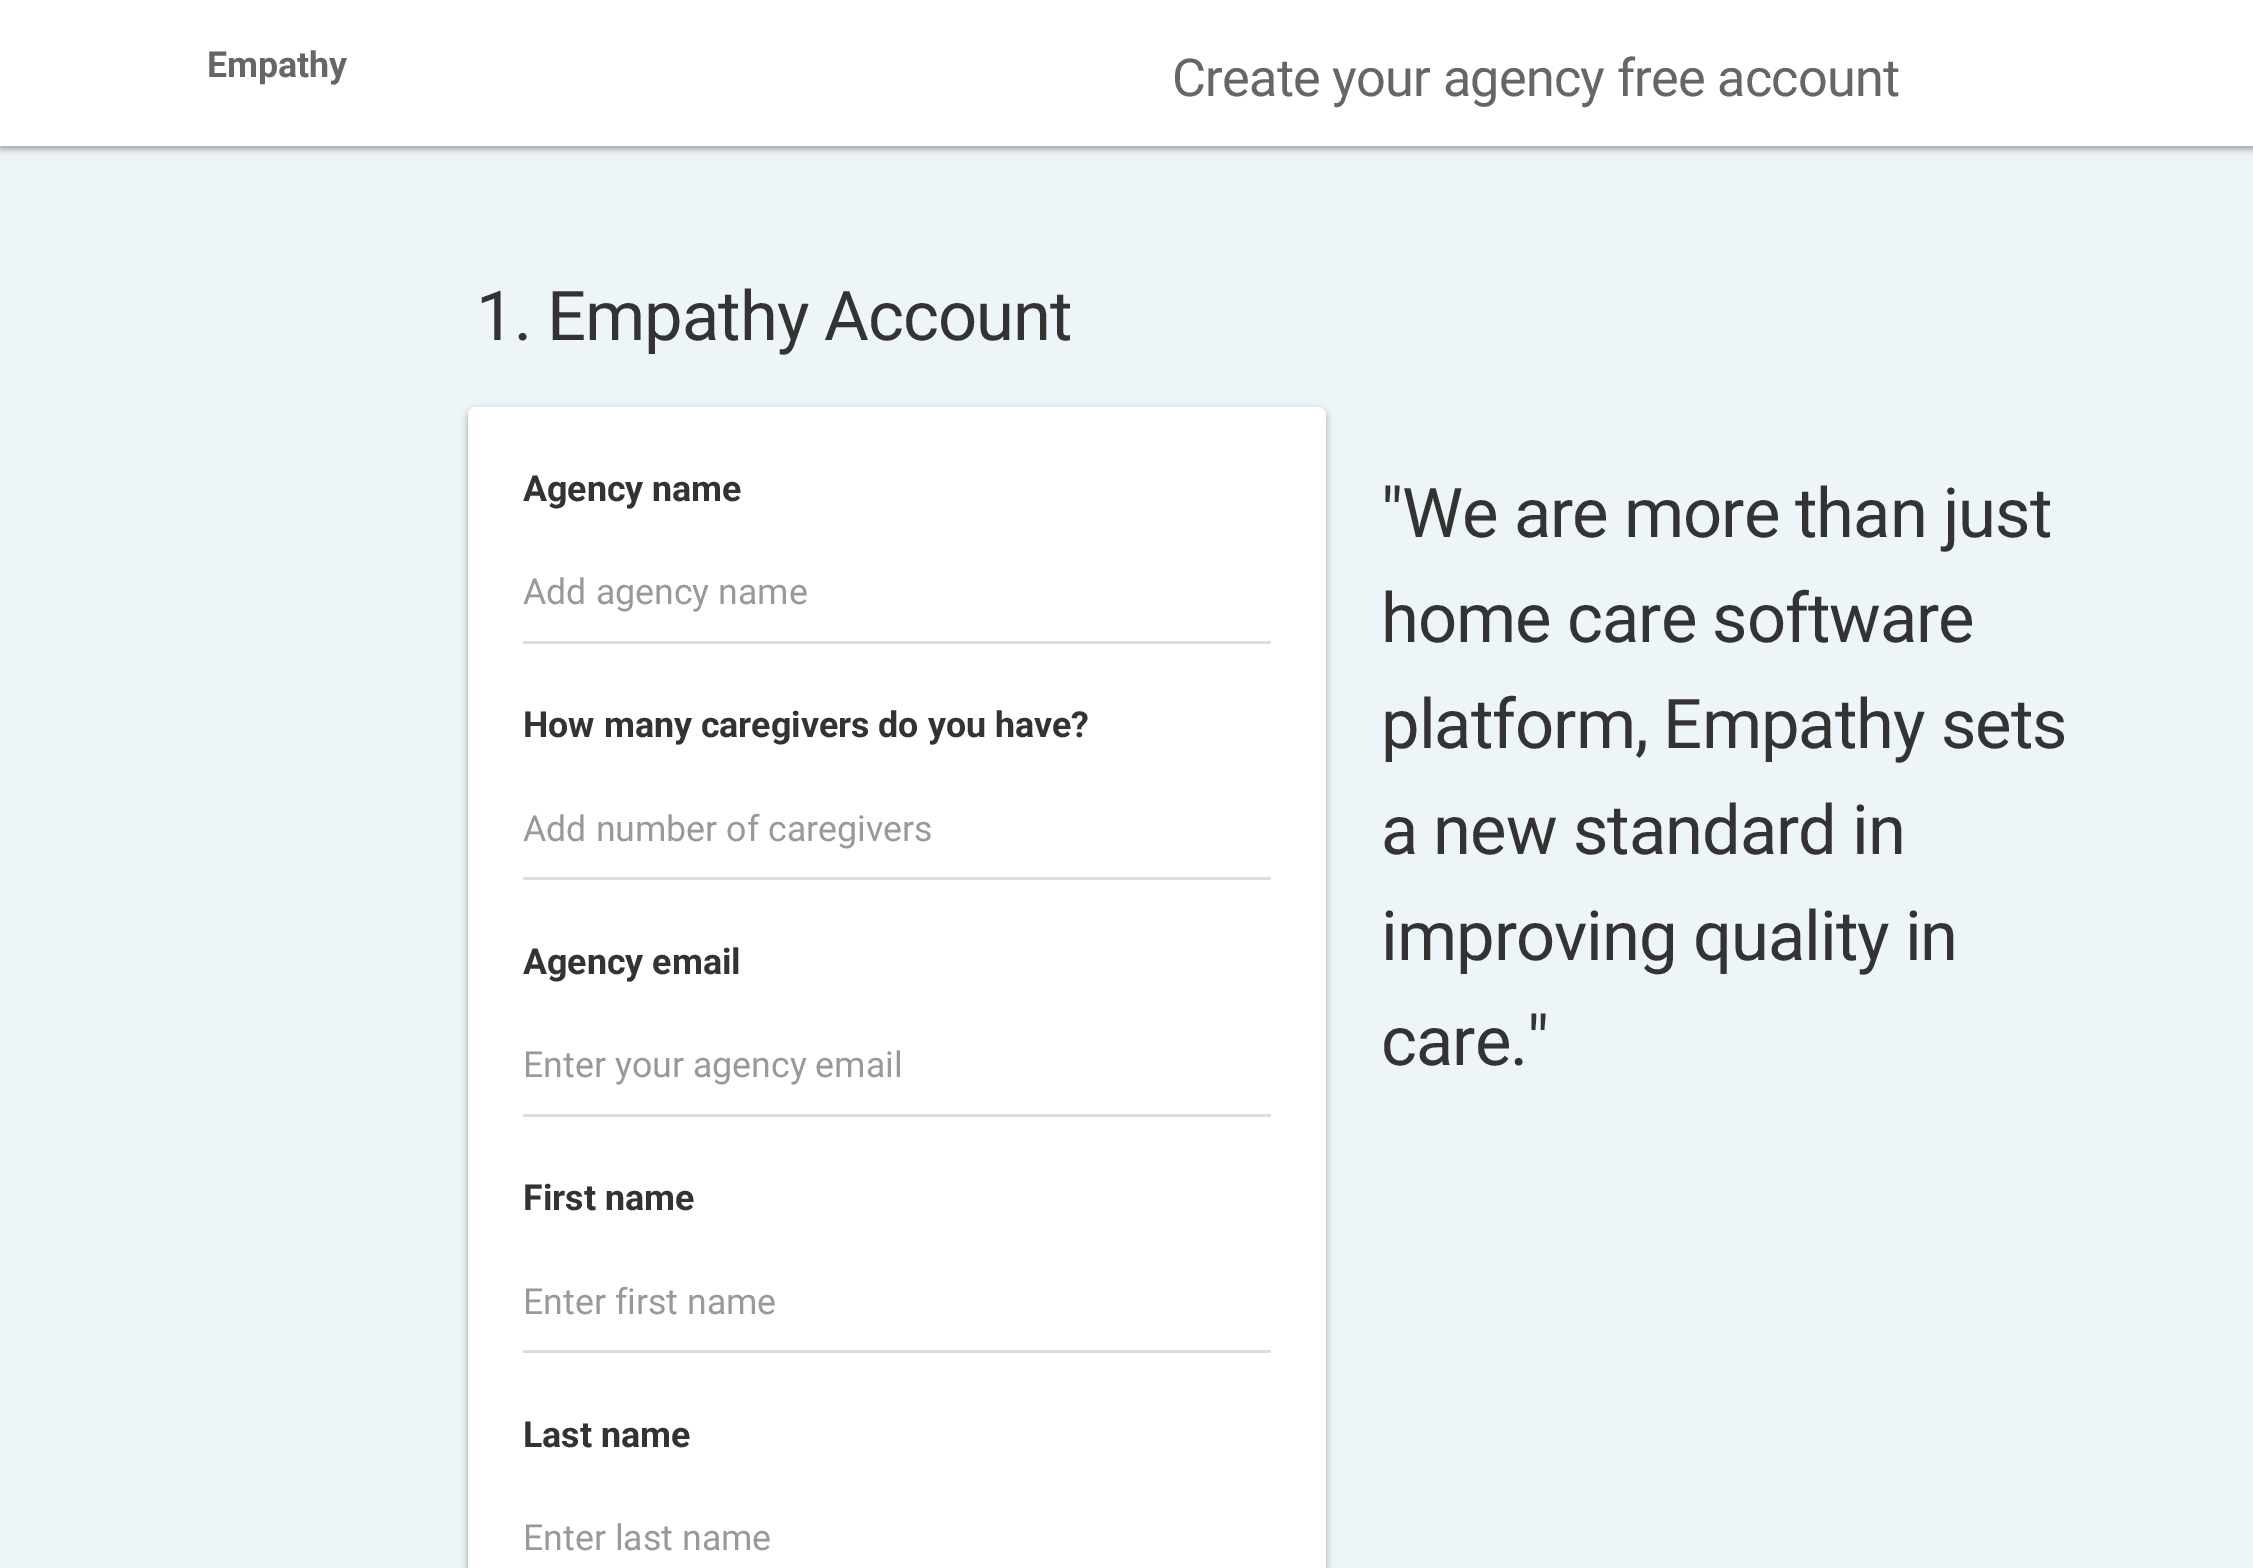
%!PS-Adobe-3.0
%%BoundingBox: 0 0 2253 1568
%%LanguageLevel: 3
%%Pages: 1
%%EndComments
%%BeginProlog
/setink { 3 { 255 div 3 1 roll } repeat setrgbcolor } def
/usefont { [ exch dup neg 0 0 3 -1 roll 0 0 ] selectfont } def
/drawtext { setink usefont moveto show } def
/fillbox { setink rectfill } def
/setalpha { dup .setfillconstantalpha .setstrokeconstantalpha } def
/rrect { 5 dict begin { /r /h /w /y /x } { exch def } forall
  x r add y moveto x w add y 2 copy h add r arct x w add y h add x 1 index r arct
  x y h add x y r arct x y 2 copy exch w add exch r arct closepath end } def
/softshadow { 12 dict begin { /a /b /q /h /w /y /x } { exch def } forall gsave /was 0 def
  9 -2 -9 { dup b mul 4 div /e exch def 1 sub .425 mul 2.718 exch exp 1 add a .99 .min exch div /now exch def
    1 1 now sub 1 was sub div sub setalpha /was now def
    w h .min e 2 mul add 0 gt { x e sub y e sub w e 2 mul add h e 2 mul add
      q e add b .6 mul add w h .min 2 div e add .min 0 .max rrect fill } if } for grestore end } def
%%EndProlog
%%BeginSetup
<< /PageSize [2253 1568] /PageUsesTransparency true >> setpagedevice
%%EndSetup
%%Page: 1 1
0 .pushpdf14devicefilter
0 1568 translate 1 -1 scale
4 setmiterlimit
0 0 2253 1568 237 245 248 fillbox
0 0 0 setink
0 3 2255 146 0 3 0.24 softshadow
0 3 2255 146 0 4 0.12 softshadow
0 0 2253 146 255 255 255 fillbox
(Empathy) 207 77 /Roboto-Bold 35.75 102 102 102 drawtext
/Roboto-Regular 52.25 usefont
1172 96 moveto -0.75 0 (Create your agency free account) ashow
/Roboto-Regular 68.75 usefont
51 51 51 setink
476 340 moveto -1 0 (1. Empathy Account) ashow
0 0 0 setink
468 410 858 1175 8 3 0.24 softshadow
468 410 858 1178 8 4 0.12 softshadow
255 255 255 setink
468 407 858 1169 8 rrect fill
(Agency name) 523 501 /Roboto-Bold 35.75 51 51 51 drawtext
523 641 748 3 221 221 221 fillbox
(Add agency name) 523 604 /Roboto-Regular 35.75 153 153 153 drawtext
(How many caregivers do you have?) 523 737 /Roboto-Bold 35.75 51 51 51 drawtext
523 877 748 3 221 221 221 fillbox
(Add number of caregivers) 523 841 /Roboto-Regular 35.75 153 153 153 drawtext
(Agency email) 523 974 /Roboto-Bold 35.75 51 51 51 drawtext
523 1114 748 3 221 221 221 fillbox
(Enter your agency email) 523 1077 /Roboto-Regular 35.75 153 153 153 drawtext
(First name) 523 1210 /Roboto-Bold 35.75 51 51 51 drawtext
523 1350 748 3 221 221 221 fillbox
(Enter first name) 523 1314 /Roboto-Regular 35.75 153 153 153 drawtext
(Last name) 523 1447 /Roboto-Bold 35.75 51 51 51 drawtext
(Enter last name) 523 1550 /Roboto-Regular 35.75 153 153 153 drawtext
/Roboto-Regular 68.75 usefont
51 51 51 setink
1381 537 moveto -1 0 ("We are more than just) ashow
1381 642 moveto -1 0 (home care software) ashow
1381 748 moveto -1 0 (platform, Empathy sets) ashow
1381 854 moveto -1 0 (a new standard in) ashow
1381 960 moveto -1 0 (improving quality in) ashow
1381 1065 moveto -1 0 (care.") ashow
.poppdf14devicefilter showpage
%%EOF
